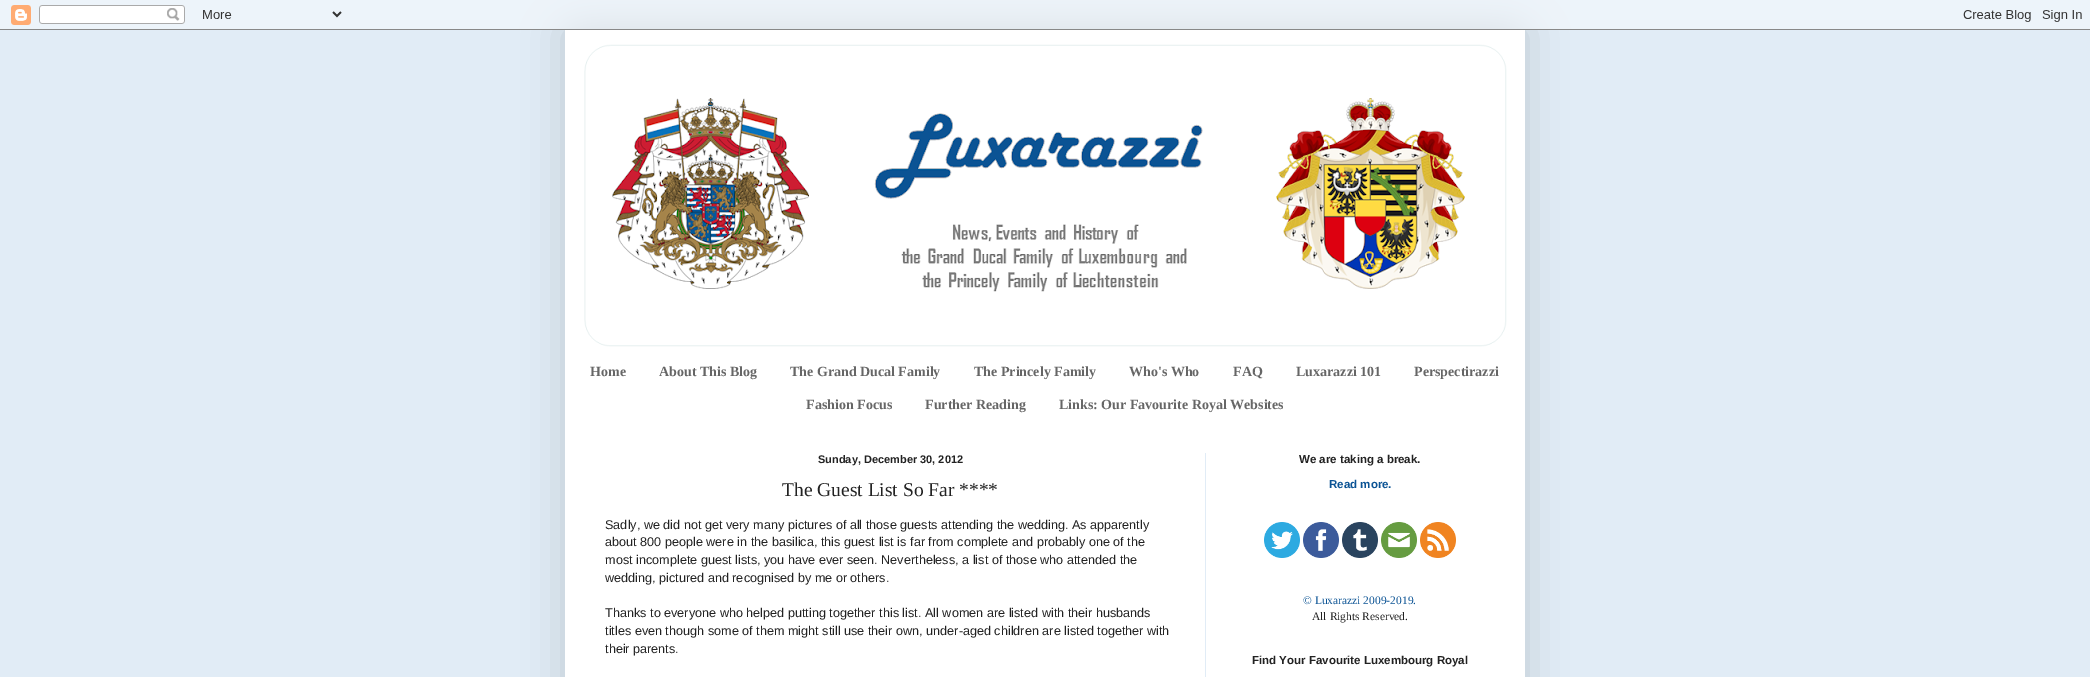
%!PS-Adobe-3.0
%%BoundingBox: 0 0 2090 677
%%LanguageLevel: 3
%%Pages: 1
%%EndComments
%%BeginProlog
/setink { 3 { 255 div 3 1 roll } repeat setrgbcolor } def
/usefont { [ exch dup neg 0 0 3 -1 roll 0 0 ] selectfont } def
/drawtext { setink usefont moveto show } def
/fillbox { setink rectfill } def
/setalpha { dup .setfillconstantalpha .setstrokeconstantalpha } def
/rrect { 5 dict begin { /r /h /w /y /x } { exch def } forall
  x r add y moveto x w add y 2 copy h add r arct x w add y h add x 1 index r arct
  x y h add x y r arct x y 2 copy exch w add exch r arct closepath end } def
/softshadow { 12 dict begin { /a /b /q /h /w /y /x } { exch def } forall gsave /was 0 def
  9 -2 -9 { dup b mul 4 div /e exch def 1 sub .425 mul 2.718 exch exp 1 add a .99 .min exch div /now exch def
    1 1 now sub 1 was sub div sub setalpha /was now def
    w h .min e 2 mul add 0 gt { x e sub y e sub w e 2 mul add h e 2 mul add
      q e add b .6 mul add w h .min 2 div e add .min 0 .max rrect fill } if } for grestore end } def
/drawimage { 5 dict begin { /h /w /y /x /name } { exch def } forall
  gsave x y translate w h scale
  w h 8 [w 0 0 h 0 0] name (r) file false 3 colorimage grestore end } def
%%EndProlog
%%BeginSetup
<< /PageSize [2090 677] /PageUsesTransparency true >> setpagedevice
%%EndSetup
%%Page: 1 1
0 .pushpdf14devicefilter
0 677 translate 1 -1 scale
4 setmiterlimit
0 0 2090 677 225 236 246 fillbox
0 0 0 setink
565 30 960 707 0 20 0.15 softshadow
(assets/img1.rgb) 0 0 2090 30 drawimage
565 30 960 647 255 255 255 fillbox
(assets/img2.rgb) 584 44 923 303 drawimage
(Home) 590 376 /LiberationSerif-Bold 14 102 102 102 drawtext
(About This Blog) 659 376 /LiberationSerif-Bold 14 102 102 102 drawtext
(The Grand Ducal Family) 790 376 /LiberationSerif-Bold 14 102 102 102 drawtext
(The Princely Family) 974 376 /LiberationSerif-Bold 14 102 102 102 drawtext
(Who's Who) 1129 376 /LiberationSerif-Bold 14 102 102 102 drawtext
(FAQ) 1233 376 /LiberationSerif-Bold 14 102 102 102 drawtext
(Luxarazzi 101) 1296 376 /LiberationSerif-Bold 14 102 102 102 drawtext
(Perspectirazzi) 1414 376 /LiberationSerif-Bold 14 102 102 102 drawtext
(Fashion Focus) 806 409 /LiberationSerif-Bold 14 102 102 102 drawtext
(Further Reading) 925 409 /LiberationSerif-Bold 14 102 102 102 drawtext
(Links: Our Favourite Royal Websites) 1059 409 /LiberationSerif-Bold 14 102 102 102 drawtext
1205 453 1 224 225 236 246 fillbox
(Sunday, December 30, 2012) 818 463 /LiberationSans-Bold 11 34 34 34 drawtext
(The Guest List So Far ****) 782 496 /LiberationSerif-Regular 19.5 34 34 34 drawtext
(Sadly, we did not get very many pictures of all those guests attending the wedding. As apparently) 605 529 /LiberationSans-Regular 12.65 34 34 34 drawtext
(about 800 people were in the basilica, this guest list is far from complete and probably one of the) 605 546 /LiberationSans-Regular 12.65 34 34 34 drawtext
(most incomplete guest lists, you have ever seen. Nevertheless, a list of those who attended the) 605 564 /LiberationSans-Regular 12.65 34 34 34 drawtext
(wedding, pictured and recognised by me or others.) 605 582 /LiberationSans-Regular 12.65 34 34 34 drawtext
(Thanks to everyone who helped putting together this list. All women are listed with their husbands) 605 617 /LiberationSans-Regular 12.65 34 34 34 drawtext
(titles even though some of them might still use their own, under-aged children are listed together with) 605 635 /LiberationSans-Regular 12.65 34 34 34 drawtext
(their parents.) 605 653 /LiberationSans-Regular 12.65 34 34 34 drawtext
(We are taking a break.) 1299 463 /Arimo-Bold 11.5 34 34 34 drawtext
(Read more.) 1329 488 /LiberationSans-Bold 11.5 11 83 148 drawtext
(assets/img3.rgb) 1264 522 36 36 drawimage
(assets/img4.rgb) 1303 522 36 36 drawimage
(assets/img5.rgb) 1342 522 36 36 drawimage
(assets/img6.rgb) 1381 522 36 36 drawimage
(assets/img7.rgb) 1420 522 36 36 drawimage
(© Luxarazzi 2009-2019.) 1303 604 /LiberationSerif-Regular 11.5 11 83 148 drawtext
(All Rights Reserved.) 1312 620 /LiberationSerif-Regular 11.5 34 34 34 drawtext
(Find Your Favourite Luxembourg Royal) 1252 664 /Arimo-Bold 11.5 34 34 34 drawtext
.poppdf14devicefilter showpage
%%EOF
